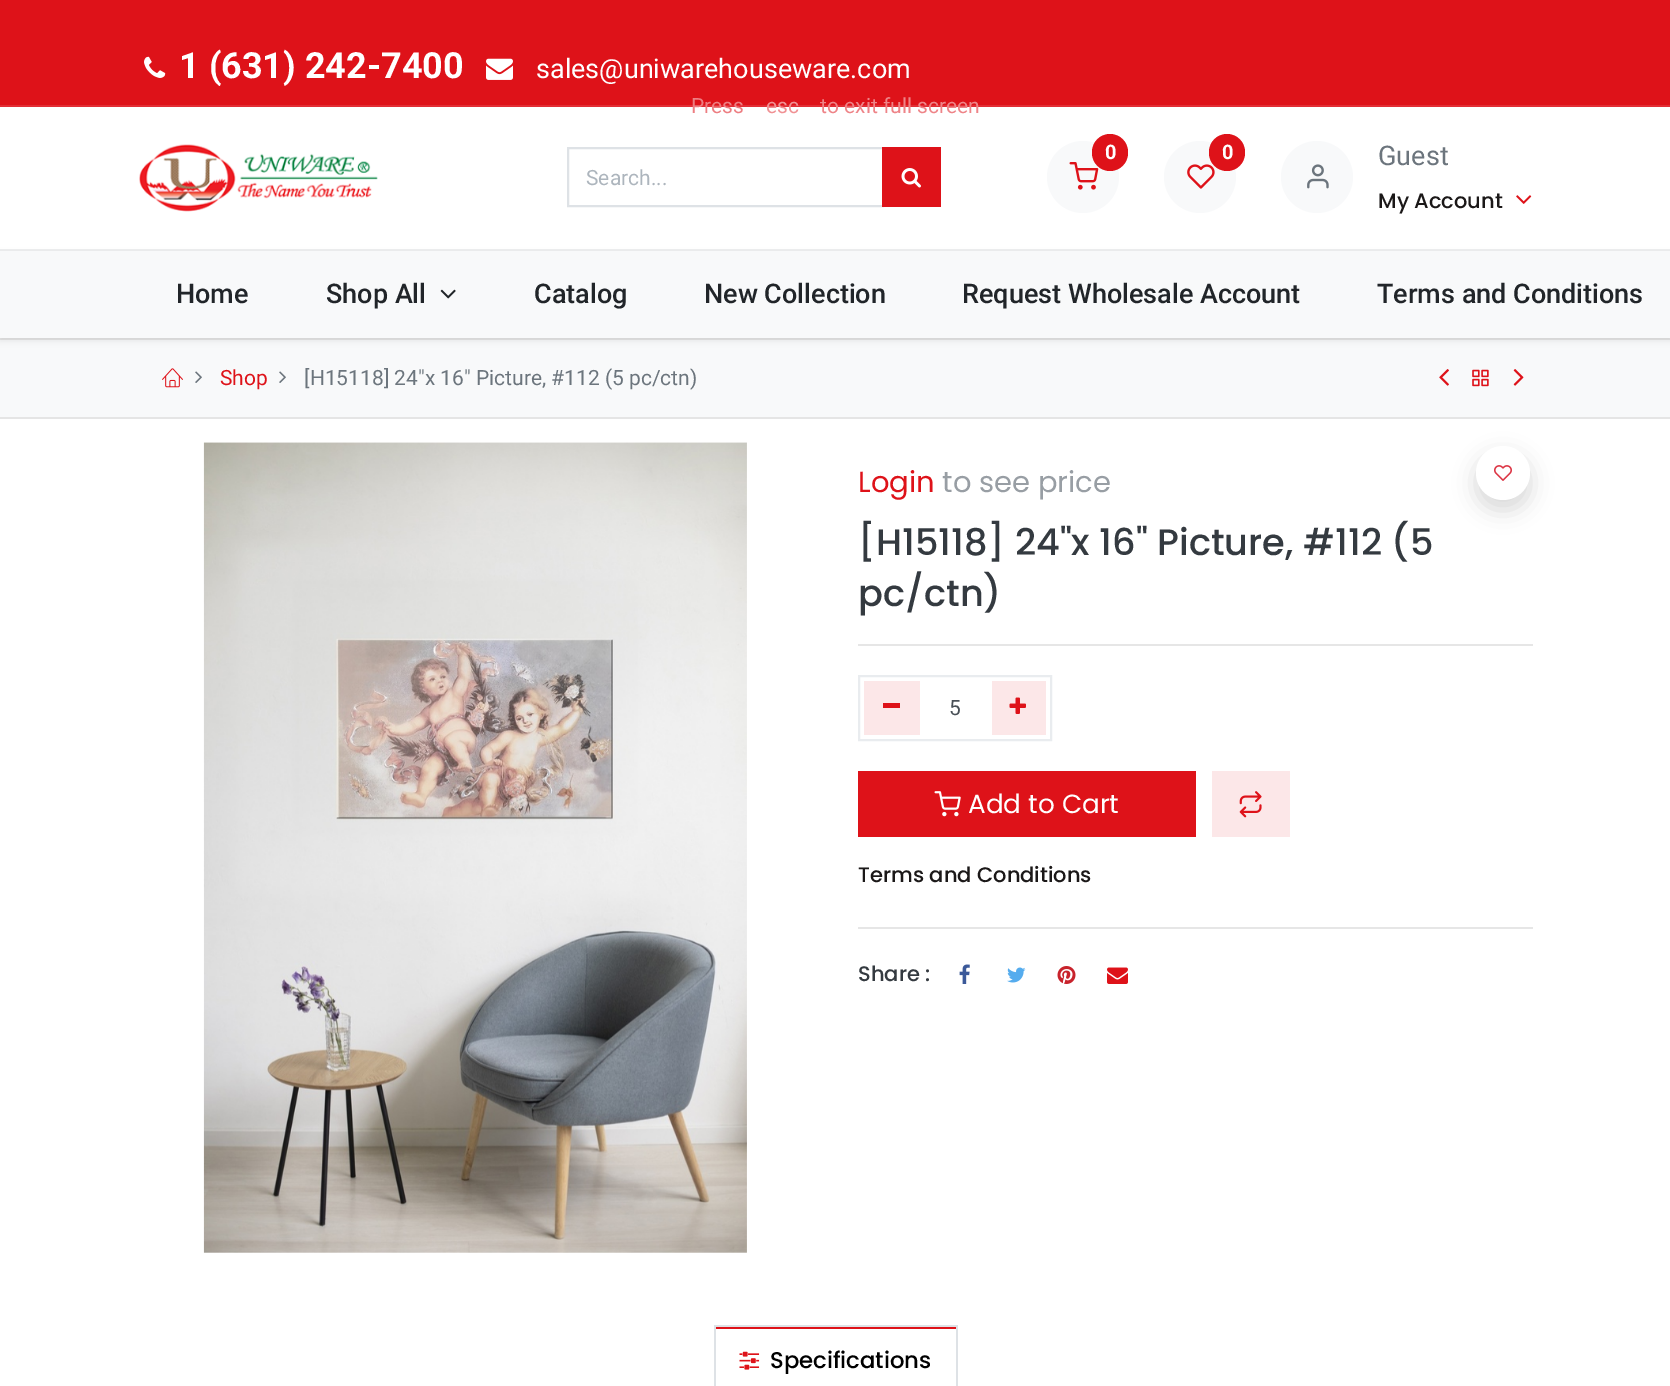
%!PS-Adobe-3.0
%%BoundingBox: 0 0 1670 1386
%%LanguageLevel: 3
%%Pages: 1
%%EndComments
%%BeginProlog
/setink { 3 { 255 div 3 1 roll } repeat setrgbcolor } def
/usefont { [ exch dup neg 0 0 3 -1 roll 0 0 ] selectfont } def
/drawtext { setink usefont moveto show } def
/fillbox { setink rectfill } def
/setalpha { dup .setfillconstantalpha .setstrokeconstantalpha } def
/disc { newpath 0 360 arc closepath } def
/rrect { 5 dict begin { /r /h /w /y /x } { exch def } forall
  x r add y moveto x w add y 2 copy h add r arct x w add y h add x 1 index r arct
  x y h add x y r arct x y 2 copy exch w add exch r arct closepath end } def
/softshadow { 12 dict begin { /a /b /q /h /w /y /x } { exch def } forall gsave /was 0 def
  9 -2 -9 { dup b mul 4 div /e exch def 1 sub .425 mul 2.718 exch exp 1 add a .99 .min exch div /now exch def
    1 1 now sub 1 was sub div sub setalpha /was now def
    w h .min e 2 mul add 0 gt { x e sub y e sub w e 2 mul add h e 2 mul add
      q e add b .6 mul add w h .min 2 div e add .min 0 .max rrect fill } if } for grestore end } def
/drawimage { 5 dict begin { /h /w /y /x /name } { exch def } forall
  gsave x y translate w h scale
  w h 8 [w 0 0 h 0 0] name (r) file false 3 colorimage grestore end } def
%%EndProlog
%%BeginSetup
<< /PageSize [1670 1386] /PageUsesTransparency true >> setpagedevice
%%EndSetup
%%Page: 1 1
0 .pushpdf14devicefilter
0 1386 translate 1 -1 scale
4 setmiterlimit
0 0 1670 1386 255 255 255 fillbox
0 0 1670 105 222 18 25 fillbox
0 105 1670 2 226 46 53 fillbox
(assets/img1.rgb) 144 56 22 22 drawimage
(1 \(631\) 242-7400) 179 78 /Roboto-Bold 36 255 255 255 drawtext
(assets/img2.rgb) 486 58 27 22 drawimage
(sales@uniwarehouseware.com) 536 78 /Roboto-Regular 27 255 255 255 drawtext
0 249 1670 2 237 238 239 fillbox
(assets/img3.rgb) 139 144 239 68 drawimage
222 226 230 setink
2 setlinewidth
568 148 315 58 rectstroke
(Search...) 586 185 /Roboto-Regular 21 173 181 189 drawtext
882 147 59 60 222 18 25 fillbox
(assets/img4.rgb) 901 168 20 20 drawimage
248 249 250 setink
1083 177 36 disc fill
(assets/img5.rgb) 1069 162 30 28 drawimage
222 18 25 setink
1092 134 36 37 18 rrect fill
(0) 1105 159 /Roboto-Bold 20 255 255 255 drawtext
248 249 250 setink
1200 177 36 disc fill
(assets/img6.rgb) 1187 164 28 25 drawimage
222 18 25 setink
1209 134 36 37 18 rrect fill
(0) 1222 159 /Roboto-Bold 20 255 255 255 drawtext
248 249 250 setink
1317 177 36 disc fill
(assets/img7.rgb) 1307 164 22 25 drawimage
(Guest) 1378 165 /Roboto-Regular 27 108 117 125 drawtext
(My Account) 1378 208 /Poppins-Medium 21 27 24 24 drawtext
(assets/img8.rgb) 1516 195 16 9 drawimage
0 340 1670 77 248 249 250 fillbox
0 338 1670 2 229 229 229 fillbox
0 0 0 setink
0 254 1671 87 0 3 0.07 softshadow
0 251 1670 87 248 249 250 fillbox
(Home) 176 303 /Roboto-Medium 27 33 37 41 drawtext
(Shop All) 326 303 /Roboto-Medium 27 33 37 41 drawtext
(assets/img9.rgb) 440 289 16 10 drawimage
(Catalog) 534 303 /Roboto-Medium 27 33 37 41 drawtext
(New Collection) 704 303 /Roboto-Medium 27 33 37 41 drawtext
(Request Wholesale Account) 962 303 /Roboto-Medium 27 33 37 41 drawtext
(Terms and Conditions) 1377 303 /Roboto-Medium 27 33 37 41 drawtext
0 417 1670 2 229 229 229 fillbox
(assets/img10.rgb) 162 368 21 20 drawimage
(assets/img11.rgb) 195 371 7 12 drawimage
(Shop) 220 385 /Roboto-Regular 21 222 18 25 drawtext
(assets/img11.rgb) 279 371 7 12 drawimage
([H15118] 24"x 16" Picture, #112 \(5 pc/ctn\)) 304 385 /Roboto-Regular 21 108 117 125 drawtext
(assets/img12.rgb) 1439 369 10 17 drawimage
(assets/img13.rgb) 1472 369 17 18 drawimage
(assets/img14.rgb) 1513 369 11 17 drawimage
(assets/img15.rgb) 203 442 544 811 drawimage
(Login) 858 492 /Poppins-Regular 29 222 18 25 drawtext
(to see price) 942 492 /Poppins-Regular 29 152 158 164 drawtext
([H15118] 24"x 16" Picture, #112 \(5) 858 555 /Poppins-Medium 36.75 52 58 64 drawtext
(pc/ctn\)) 858 606 /Poppins-Medium 36.75 52 58 64 drawtext
858 644 675 2 230 230 230 fillbox
233 236 239 setink
859 676 192 64 rectstroke
864 681 56 54 252 231 232 fillbox
883 703 17 5 222 18 25 fillbox
(5) 949 715 /Roboto-Regular 21 73 80 87 drawtext
992 681 54 54 252 231 232 fillbox
(assets/img16.rgb) 1009 697 17 17 drawimage
0 0 0 setink
1476 456 54 54 27 11 0.15 softshadow
255 255 255 setink
1503 473 27 disc fill
(assets/img17.rgb) 1494 465 18 16 drawimage
858 771 338 66 222 18 25 fillbox
(assets/img18.rgb) 934 791 27 26 drawimage
(Add to Cart) 968 813 /Poppins-Regular 26.25 255 255 255 drawtext
1212 771 78 66 252 231 232 fillbox
(assets/img19.rgb) 1239 791 23 27 drawimage
(Terms and Conditions) 858 882 /Poppins-Medium 21 27 24 24 drawtext
858 927 675 2 230 230 230 fillbox
(Share :) 858 981 /Poppins-Medium 21 52 58 64 drawtext
(assets/img20.rgb) 959 964 11 20 drawimage
(assets/img21.rgb) 1007 967 19 16 drawimage
(assets/img22.rgb) 1057 966 19 18 drawimage
(assets/img23.rgb) 1107 967 21 17 drawimage
716 1327 240 2 222 18 25 fillbox
714 1325 243 2 222 226 230 fillbox
956 1325 2 61 222 226 230 fillbox
714 1325 2 61 222 226 230 fillbox
(assets/img24.rgb) 739 1351 21 19 drawimage
(Specifications) 770 1368 /Poppins-Medium 22.75 0 0 0 drawtext
(Press) 691 113 /Roboto-Regular 21 237 126 130 drawtext
(esc) 766 113 /Roboto-Regular 21 240 145 148 drawtext
(to exit full screen) 820 113 /Roboto-Regular 21 238 132 136 drawtext
.poppdf14devicefilter showpage
%%EOF
